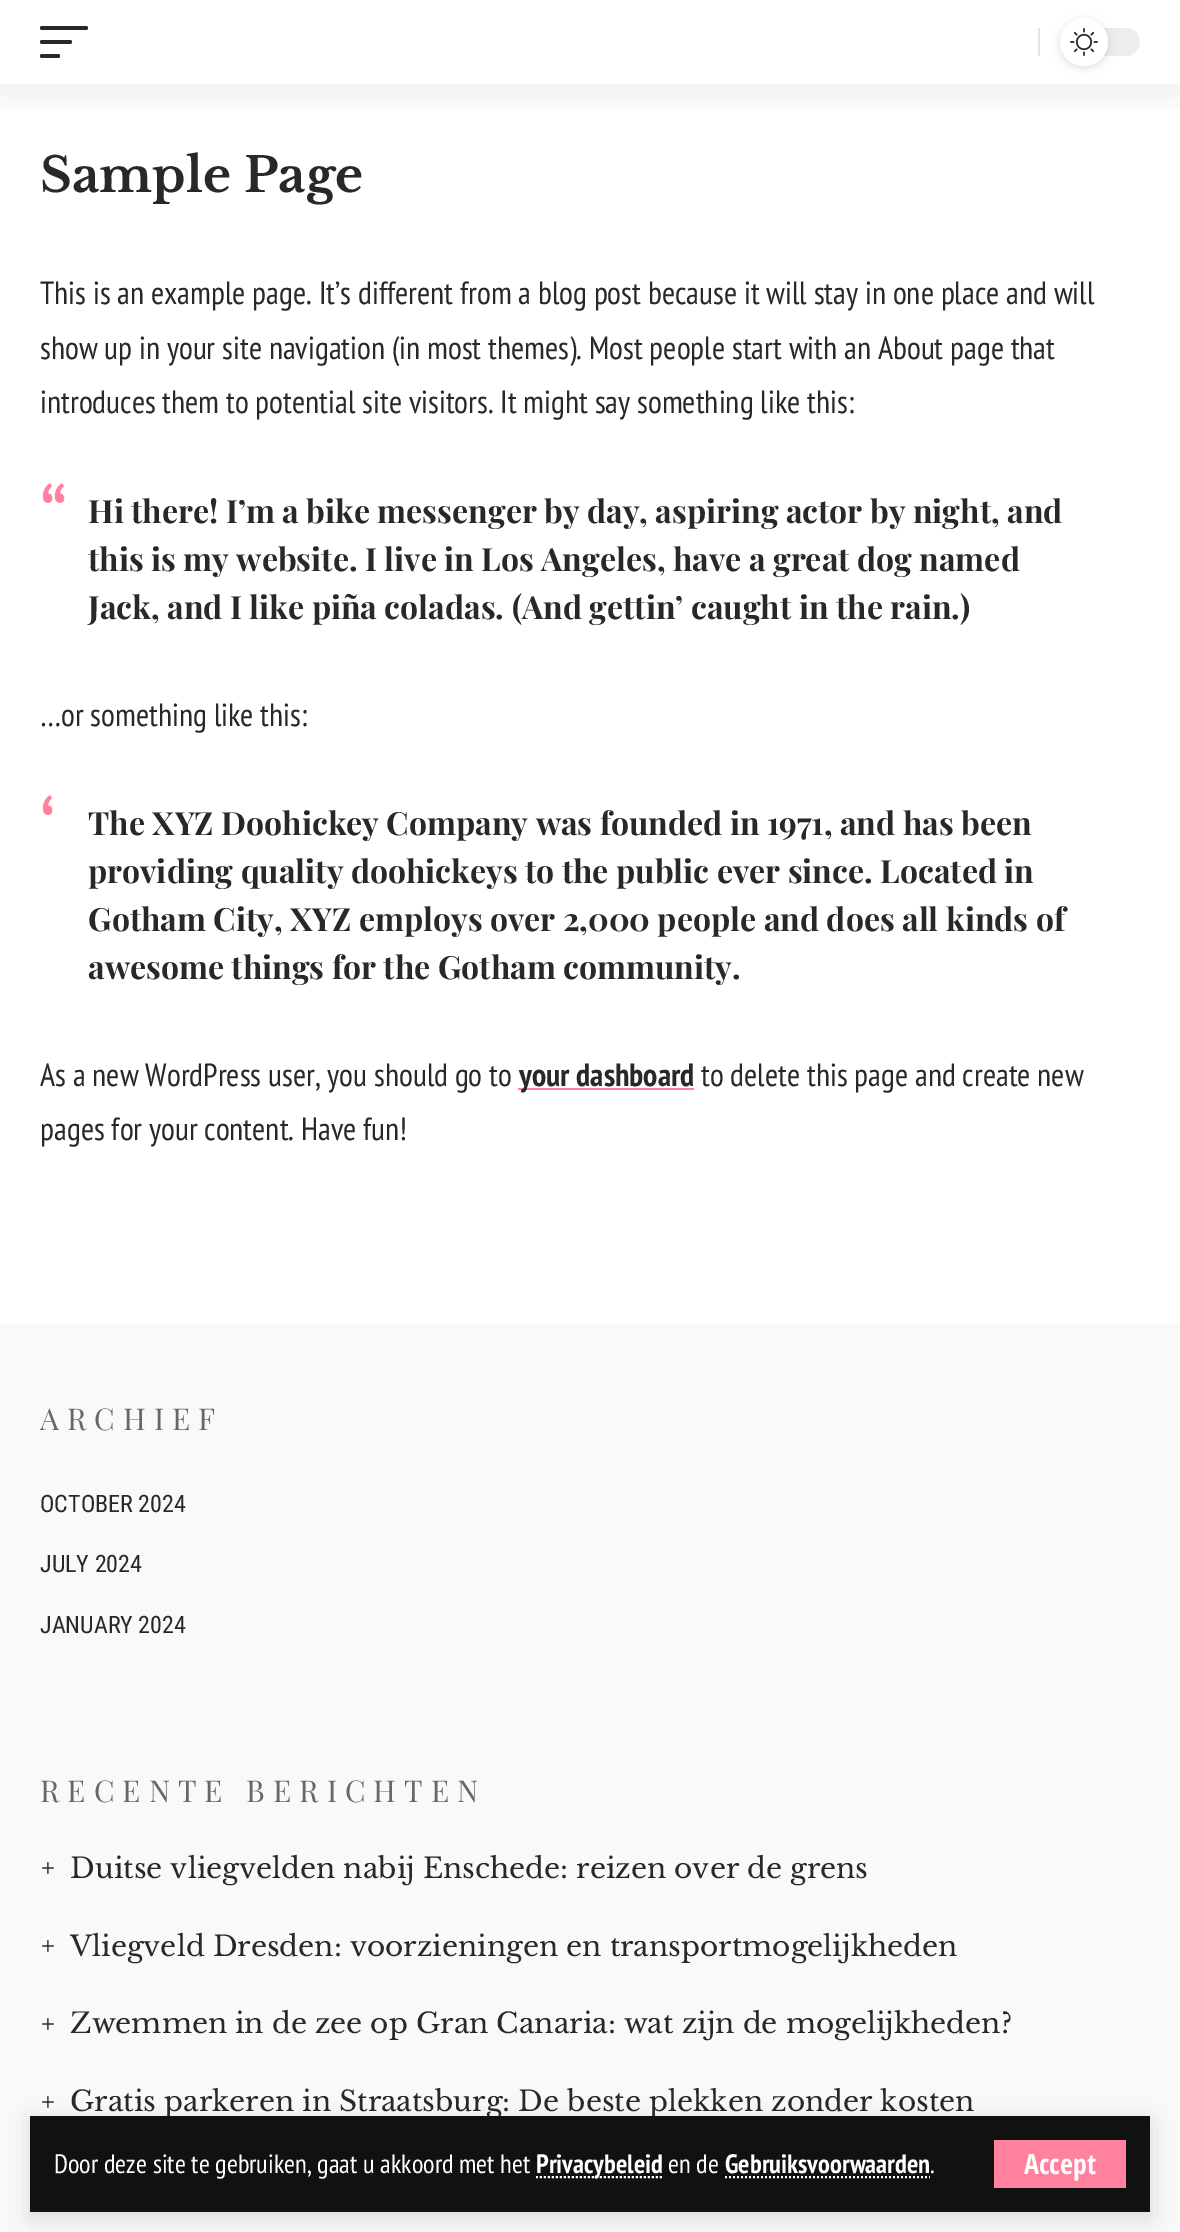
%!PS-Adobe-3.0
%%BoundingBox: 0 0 1180 2232
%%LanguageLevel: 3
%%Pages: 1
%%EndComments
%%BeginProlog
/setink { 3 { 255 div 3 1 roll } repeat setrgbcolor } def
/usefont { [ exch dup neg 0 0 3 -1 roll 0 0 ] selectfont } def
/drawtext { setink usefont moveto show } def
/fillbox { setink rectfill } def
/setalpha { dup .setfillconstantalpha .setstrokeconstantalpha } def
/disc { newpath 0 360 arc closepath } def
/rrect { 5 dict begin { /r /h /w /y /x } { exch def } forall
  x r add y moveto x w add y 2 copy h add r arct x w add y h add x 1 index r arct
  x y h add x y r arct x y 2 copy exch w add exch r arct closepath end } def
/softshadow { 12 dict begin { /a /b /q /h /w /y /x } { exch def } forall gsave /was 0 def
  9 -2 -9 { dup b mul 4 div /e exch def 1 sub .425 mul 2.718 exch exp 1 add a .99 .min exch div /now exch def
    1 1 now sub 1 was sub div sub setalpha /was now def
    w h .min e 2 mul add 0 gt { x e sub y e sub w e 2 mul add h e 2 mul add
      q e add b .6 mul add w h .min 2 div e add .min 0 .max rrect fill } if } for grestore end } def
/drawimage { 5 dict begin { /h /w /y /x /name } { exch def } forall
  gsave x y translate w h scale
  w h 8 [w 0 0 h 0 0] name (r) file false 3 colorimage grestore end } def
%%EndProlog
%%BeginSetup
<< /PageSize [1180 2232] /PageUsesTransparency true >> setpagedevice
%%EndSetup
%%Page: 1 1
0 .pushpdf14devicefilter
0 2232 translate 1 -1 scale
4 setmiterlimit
0 0 1180 2232 255 255 255 fillbox
(Sample Page) 40 192 /LibreBaskerville-Bold 48 40 40 40 drawtext
(This is an example page. It’s different from a blog post because it will stay in one place and will) 40 304 /PTSansNarrow-Regular 32 40 40 40 drawtext
(show up in your site navigation \(in most themes\). Most people start with an About page that) 40 359 /PTSansNarrow-Regular 32 40 40 40 drawtext
(introduces them to potential site visitors. It might say something like this:) 40 413 /PTSansNarrow-Regular 32 40 40 40 drawtext
(“) 40 557 /PTSansNarrow-Regular 95 255 129 158 drawtext
(Hi there! I’m a bike messenger by day, aspiring actor by night, and) 88 523 /PlayfairDisplay-Bold 32 40 40 40 drawtext
(this is my website. I live in Los Angeles, have a great dog named) 88 571 /PlayfairDisplay-Bold 32 40 40 40 drawtext
(Jack, and I like piña coladas. \(And gettin’ caught in the rain.\)) 88 619 /PlayfairDisplay-Bold 32 40 40 40 drawtext
(…or something like this:) 40 726 /PTSansNarrow-Regular 32 40 40 40 drawtext
(‘) 40 869 /PTSansNarrow-Regular 95 255 129 158 drawtext
(The XYZ Doohickey Company was founded in 1971, and has been) 88 835 /PlayfairDisplay-Bold 32 40 40 40 drawtext
(providing quality doohickeys to the public ever since. Located in) 88 883 /PlayfairDisplay-Bold 32 40 40 40 drawtext
(Gotham City, XYZ employs over 2,000 people and does all kinds of) 88 931 /PlayfairDisplay-Bold 32 40 40 40 drawtext
(awesome things for the Gotham community.) 88 979 /PlayfairDisplay-Bold 32 40 40 40 drawtext
(As a new WordPress user, you should go to) 40 1086 /PTSansNarrow-Regular 32 40 40 40 drawtext
518 1088 176 2 255 129 158 fillbox
(your dashboard) 519 1086 /PTSansNarrow-Bold 32 40 40 40 drawtext
(to delete this page and create new) 701 1086 /PTSansNarrow-Regular 32 40 40 40 drawtext
(pages for your content. Have fun!) 40 1140 /PTSansNarrow-Regular 32 40 40 40 drawtext
0 1324 1180 908 249 249 249 fillbox
/PlayfairDisplay-Regular 30 usefont
103 103 103 setink
40 1430 moveto 8 0 (ARCHIEF) ashow
(OCTOBER 2024) 40 1512 /RobotoCondensed-Regular 24 40 40 40 drawtext
(JULY 2024) 40 1572 /RobotoCondensed-Regular 24 40 40 40 drawtext
(JANUARY 2024) 40 1633 /RobotoCondensed-Regular 24 40 40 40 drawtext
/PlayfairDisplay-Regular 30 usefont
103 103 103 setink
40 1802 moveto 8 0 (RECENTE BERICHTEN) ashow
(assets/img1.rgb) 42 1862 12 12 drawimage
(Duitse vliegvelden nabij Enschede: reizen over de grens) 70 1878 /LibreBaskerville-Regular 28 40 40 40 drawtext
(assets/img1.rgb) 42 1940 12 12 drawimage
(Vliegveld Dresden: voorzieningen en transportmogelijkheden) 70 1956 /LibreBaskerville-Regular 28 40 40 40 drawtext
(assets/img1.rgb) 42 2018 12 12 drawimage
(Zwemmen in de zee op Gran Canaria: wat zijn de mogelijkheden?) 70 2033 /LibreBaskerville-Regular 28 40 40 40 drawtext
(assets/img1.rgb) 42 2096 12 12 drawimage
(Gratis parkeren in Straatsburg: De beste plekken zonder kosten) 70 2111 /LibreBaskerville-Regular 28 40 40 40 drawtext
gsave
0 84 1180 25 rectclip
0 0 0 setink
0 8 1180 84 0 30 0.07 softshadow
grestore
40 26 48 4 2 rrect fill
40 40 32 4 2 rrect fill
40 54 20 4 2 rrect fill
1038 28 2 28 228 228 228 fillbox
237 237 237 setink
1060 28 80 28 14 rrect fill
0 0 0 setink
1060 20 48 48 24 4 0.12 softshadow
255 255 255 setink
1084 42 24 disc fill
(assets/img2.rgb) 1070 28 28 28 drawimage
0 0 0 setink
30 2122 1120 96 0 12 0.12 softshadow
30 2116 1120 96 17 17 17 fillbox
(Door deze site te gebruiken, gaat u akkoord met het) 54 2173 /PTSansNarrow-Regular 26.6 255 255 255 drawtext
2 setlinewidth
[2 2] 0 setdash
536 2177 moveto 662.5 2177 lineto stroke
(Privacybeleid) 536 2173 /PTSansNarrow-Bold 26.6 255 255 255 drawtext
(en de) 668 2173 /PTSansNarrow-Regular 26.6 255 255 255 drawtext
(Gebruiksvoorwaarden) 725 2173 /PTSansNarrow-Bold 26.6 255 255 255 drawtext
725 2177 moveto 930 2177 lineto stroke
(.) 930 2173 /PTSansNarrow-Regular 26.6 255 255 255 drawtext
994 2140 132 48 255 129 158 fillbox
(Accept) 1024 2174 /OpenSansCondensed-Bold 28 255 255 255 drawtext
.poppdf14devicefilter showpage
%%EOF
